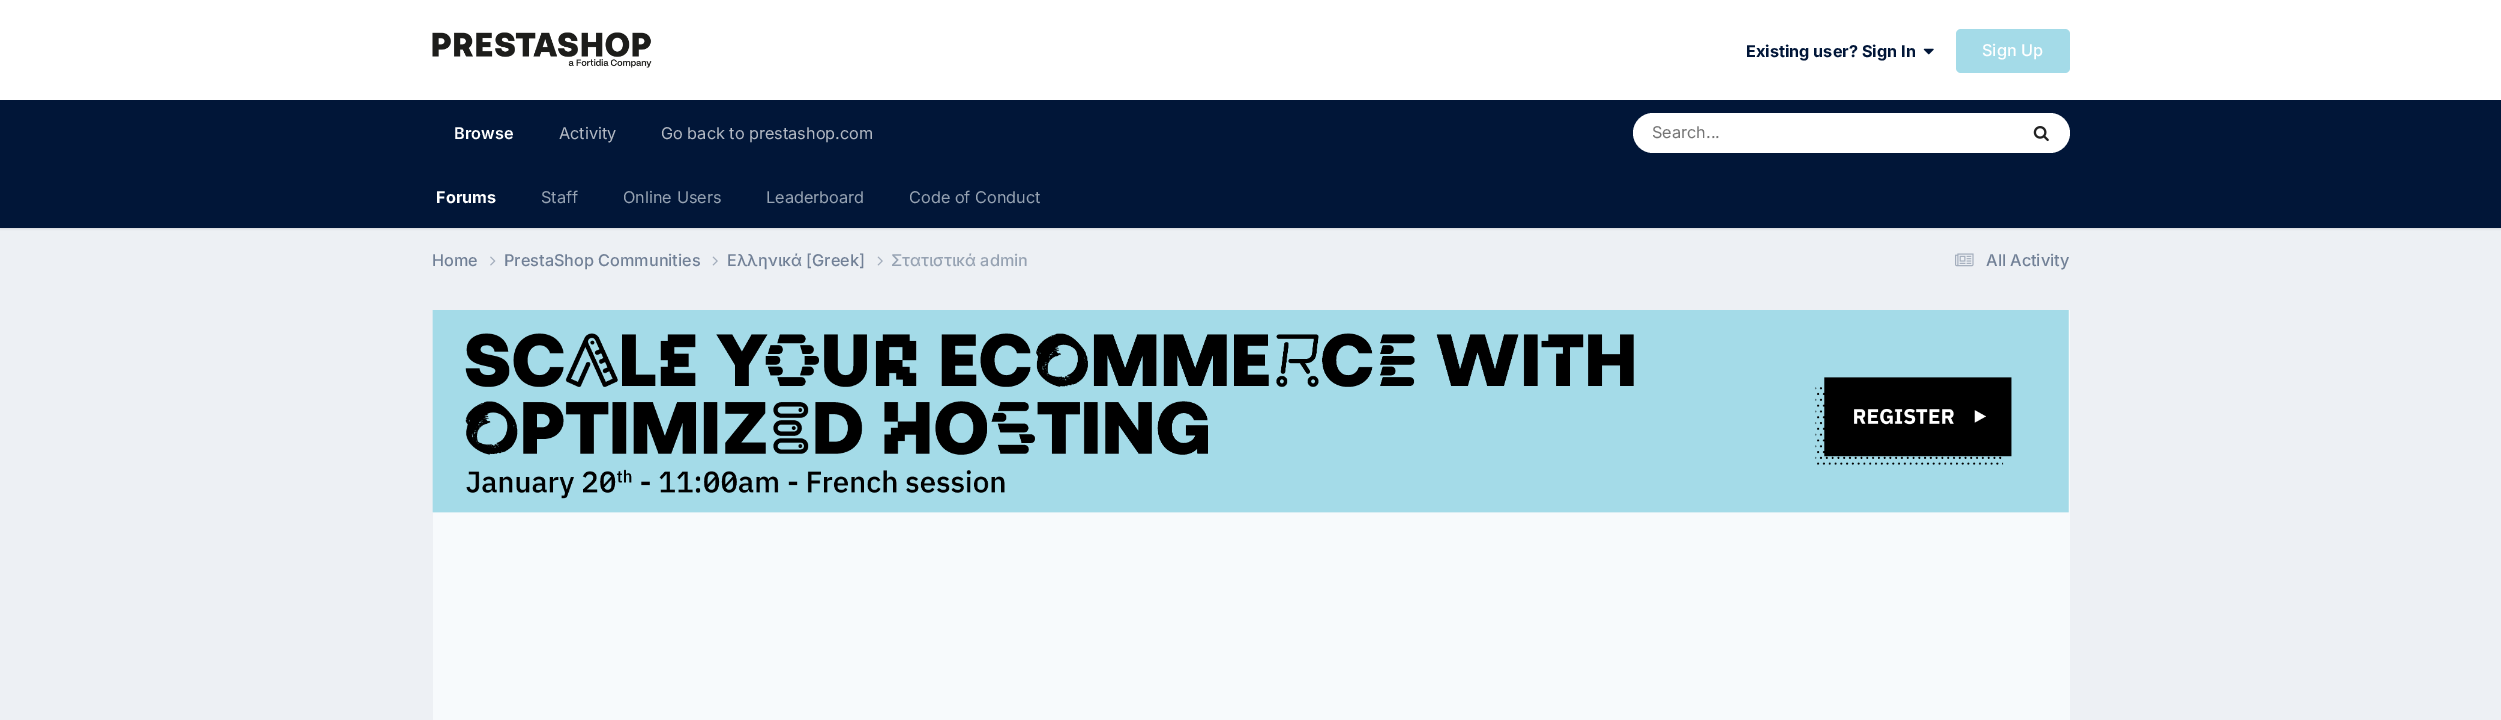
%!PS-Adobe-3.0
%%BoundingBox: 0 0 2501 720
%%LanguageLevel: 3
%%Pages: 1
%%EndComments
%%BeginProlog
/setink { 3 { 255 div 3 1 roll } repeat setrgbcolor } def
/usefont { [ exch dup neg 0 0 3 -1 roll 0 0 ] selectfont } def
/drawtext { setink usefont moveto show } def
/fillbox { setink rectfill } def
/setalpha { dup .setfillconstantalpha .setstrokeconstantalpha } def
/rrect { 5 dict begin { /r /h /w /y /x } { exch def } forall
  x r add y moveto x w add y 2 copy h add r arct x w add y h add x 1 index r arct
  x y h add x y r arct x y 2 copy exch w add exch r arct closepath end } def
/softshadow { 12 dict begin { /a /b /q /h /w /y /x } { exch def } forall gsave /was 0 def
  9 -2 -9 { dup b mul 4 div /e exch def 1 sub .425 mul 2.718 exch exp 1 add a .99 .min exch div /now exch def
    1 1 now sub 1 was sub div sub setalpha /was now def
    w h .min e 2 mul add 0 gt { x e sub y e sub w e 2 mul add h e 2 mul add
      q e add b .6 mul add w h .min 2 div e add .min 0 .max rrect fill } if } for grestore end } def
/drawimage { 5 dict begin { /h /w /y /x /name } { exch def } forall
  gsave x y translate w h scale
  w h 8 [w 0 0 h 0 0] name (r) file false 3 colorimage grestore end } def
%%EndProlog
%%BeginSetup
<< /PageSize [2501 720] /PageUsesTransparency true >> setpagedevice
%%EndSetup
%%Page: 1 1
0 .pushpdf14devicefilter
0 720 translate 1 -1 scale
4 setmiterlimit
0 0 2501 720 237 240 244 fillbox
0 0 2501 100 255 255 255 fillbox
(assets/img1.rgb) 432 32 220 36 drawimage
(Existing user? Sign In) 1746 57 /Inter-Bold 16.25 1 22 56 drawtext
(assets/img2.rgb) 1923 48 11 7 drawimage
164 219 232 setink
1956 29 114 44 5 rrect fill
(Sign Up) 1982 56 /Inter-Medium 16.25 255 255 255 drawtext
0 100 2501 65 1 22 56 fillbox
(Activity) 559 139 /Inter-Regular 16.25 179 185 195 drawtext
(Browse) 454 139 /Inter-SemiBold 16.25 255 255 255 drawtext
0 0 0 setink
0 166 2501 63 0 1 0.1 softshadow
0 165 2501 63 1 22 56 fillbox
(Forums) 436 203 /Inter-Bold 16.25 255 255 255 drawtext
(Staff) 541 203 /Inter-Regular 16.25 150 162 178 drawtext
(Online Users) 623 203 /Inter-Regular 16.25 150 162 178 drawtext
(Leaderboard) 766 203 /Inter-Regular 16.25 150 162 178 drawtext
(Code of Conduct) 909 203 /Inter-Regular 16.25 150 162 178 drawtext
(Go back to prestashop.com) 661 139 /Inter-Regular 16.25 179 185 195 drawtext
255 255 255 setink
1633 113 437 40 20 rrect fill
(Search...) 1652 138 /Inter-Regular 16.25 117 117 117 drawtext
(assets/img3.rgb) 2033 126 16 16 drawimage
(Home) 432 266 /Inter-Medium 16.25 113 128 150 drawtext
(assets/img4.rgb) 490 256 6 10 drawimage
(PrestaShop Communities) 504 266 /Inter-Medium 16.25 113 128 150 drawtext
(assets/img5.rgb) 712 256 6 10 drawimage
(Ελληνικά [Greek]) 727 266 /Inter-Medium 16.25 113 128 150 drawtext
(assets/img5.rgb) 877 256 6 10 drawimage
(Στατιστικά admin) 891 266 /Inter-Medium 16.25 150 162 178 drawtext
(assets/img6.rgb) 1955 253 19 14 drawimage
(All Activity) 1986 266 /Inter-Medium 16.25 113 128 150 drawtext
433 310 1637 410 247 250 252 fillbox
(assets/img7.rgb) 432 310 1637 203 drawimage
.poppdf14devicefilter showpage
%%EOF
